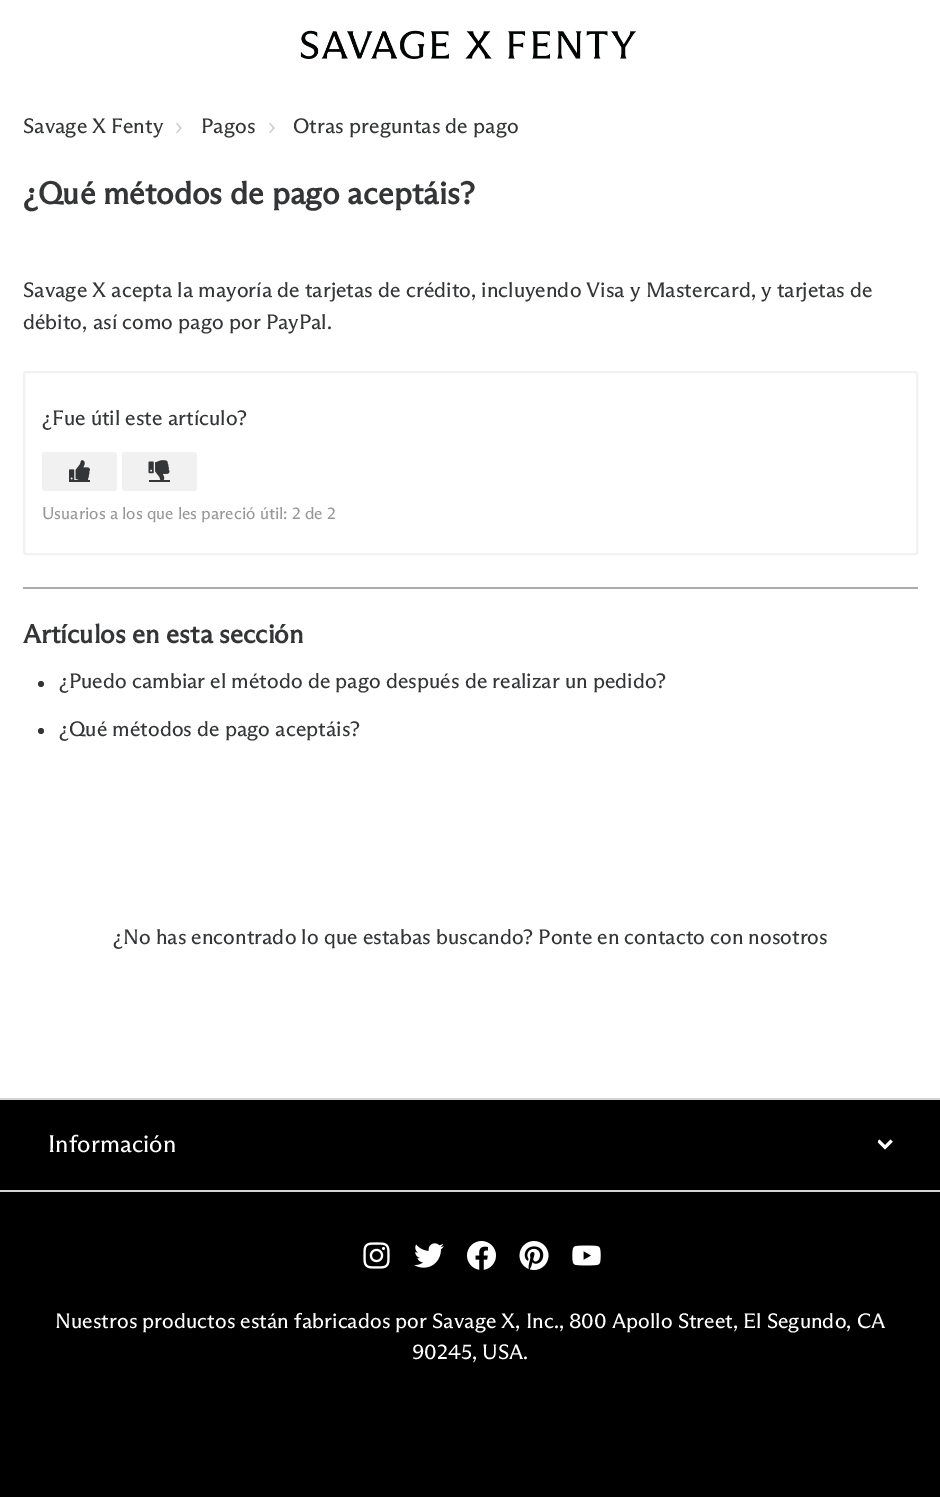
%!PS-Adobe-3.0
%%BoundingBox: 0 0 940 1497
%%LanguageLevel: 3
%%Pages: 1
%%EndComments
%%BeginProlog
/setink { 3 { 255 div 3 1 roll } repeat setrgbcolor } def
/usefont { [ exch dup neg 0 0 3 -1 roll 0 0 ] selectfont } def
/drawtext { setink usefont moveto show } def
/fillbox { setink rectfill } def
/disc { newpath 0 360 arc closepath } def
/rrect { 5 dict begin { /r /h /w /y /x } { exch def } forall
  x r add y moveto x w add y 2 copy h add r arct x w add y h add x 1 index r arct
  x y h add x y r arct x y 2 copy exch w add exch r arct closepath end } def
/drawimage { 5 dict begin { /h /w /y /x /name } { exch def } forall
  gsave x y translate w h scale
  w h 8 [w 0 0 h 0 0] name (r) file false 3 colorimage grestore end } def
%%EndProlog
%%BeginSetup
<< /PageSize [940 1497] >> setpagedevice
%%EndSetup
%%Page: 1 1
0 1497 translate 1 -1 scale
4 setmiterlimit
0 0 940 1497 255 255 255 fillbox
(assets/img1.rgb) 300 30 336 29 drawimage
(Savage X Fenty) 23 133 /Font-Regular 21 51 53 54 drawtext
(›) 175 133 /Font-Regular 21 204 204 204 drawtext
(Pagos) 201 133 /Font-Regular 21 51 53 54 drawtext
(›) 268 133 /Font-Regular 21 204 204 204 drawtext
(Otras preguntas de pago) 293 133 /Font-Regular 21 51 53 54 drawtext
(¿Qué métodos de pago aceptáis?) 23 204 /Font-Bold 31.5 51 53 54 drawtext
(Savage X acepta la mayoría de tarjetas de crédito, incluyendo Visa y Mastercard, y tarjetas de) 23 297 /Font-Regular 21 51 53 54 drawtext
(débito, así como pago por PayPal.) 23 329 /Font-Regular 21 51 53 54 drawtext
241 241 241 setink
2 setlinewidth
24 372 893 182 2 rrect stroke
(¿Fue útil este artículo?) 42 425 /Font-Regular 21 51 53 54 drawtext
241 241 241 setink
42 452 75 39 3 rrect fill
(assets/img2.rgb) 69 460 21 20 drawimage
69 480 21 2 51 53 54 fillbox
241 241 241 setink
122 452 75 39 3 rrect fill
(assets/img3.rgb) 148 460 22 20 drawimage
149 480 21 2 51 53 54 fillbox
(Usuarios a los que les pareció útil: 2 de 2) 42 519 /Font-Regular 16.75 151 151 151 drawtext
23 587 895 2 170 170 170 fillbox
(Artículos en esta sección) 23 643 /Font-Bold 26.25 51 53 54 drawtext
41 684 3 disc fill
(¿Puedo cambiar el método de pago después de realizar un pedido?) 59 688 /Font-Regular 21 51 53 54 drawtext
41 731 3 disc fill
(¿Qué métodos de pago aceptáis?) 59 736 /Font-Regular 21 51 53 54 drawtext
(¿No has encontrado lo que estabas buscando? Ponte en contacto con nosotros) 113 944 /Font-Regular 21 51 53 54 drawtext
0 1100 940 397 0 0 0 fillbox
0 1098 940 2 211 211 211 fillbox
0 1190 940 2 211 211 211 fillbox
(Información) 48 1152 /Font-Regular 24 255 255 255 drawtext
(assets/img4.rgb) 878 1139 15 11 drawimage
(assets/img5.rgb) 363 1242 27 27 drawimage
(assets/img6.rgb) 414 1243 30 25 drawimage
(assets/img7.rgb) 467 1241 29 29 drawimage
(assets/img8.rgb) 519 1241 30 29 drawimage
(assets/img9.rgb) 572 1245 29 21 drawimage
(Nuestros productos están fabricados por Savage X, Inc., 800 Apollo Street, El Segundo, CA) 55 1328 /Font-Regular 21 255 255 255 drawtext
(90245, USA.) 412 1359 /Font-Regular 21 255 255 255 drawtext
showpage
%%EOF
